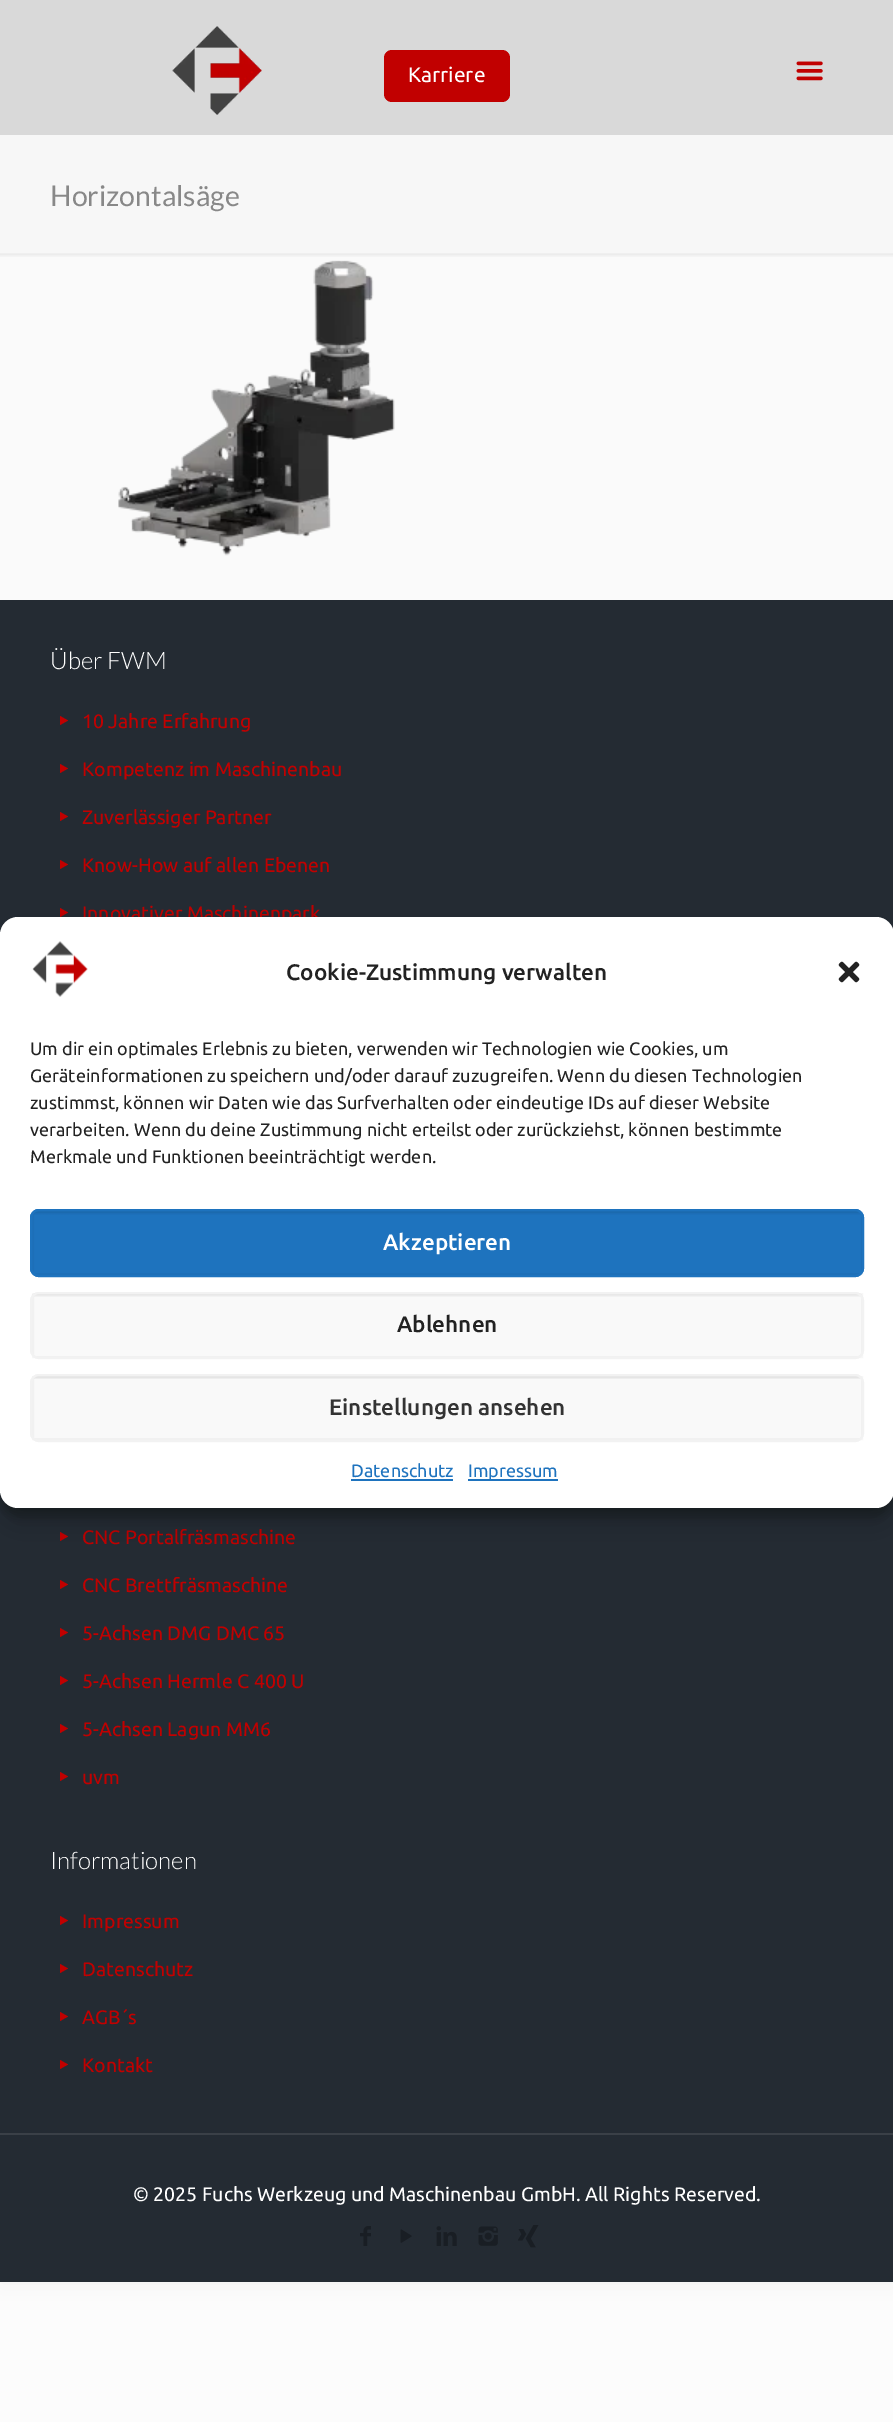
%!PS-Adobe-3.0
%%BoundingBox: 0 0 893 2422
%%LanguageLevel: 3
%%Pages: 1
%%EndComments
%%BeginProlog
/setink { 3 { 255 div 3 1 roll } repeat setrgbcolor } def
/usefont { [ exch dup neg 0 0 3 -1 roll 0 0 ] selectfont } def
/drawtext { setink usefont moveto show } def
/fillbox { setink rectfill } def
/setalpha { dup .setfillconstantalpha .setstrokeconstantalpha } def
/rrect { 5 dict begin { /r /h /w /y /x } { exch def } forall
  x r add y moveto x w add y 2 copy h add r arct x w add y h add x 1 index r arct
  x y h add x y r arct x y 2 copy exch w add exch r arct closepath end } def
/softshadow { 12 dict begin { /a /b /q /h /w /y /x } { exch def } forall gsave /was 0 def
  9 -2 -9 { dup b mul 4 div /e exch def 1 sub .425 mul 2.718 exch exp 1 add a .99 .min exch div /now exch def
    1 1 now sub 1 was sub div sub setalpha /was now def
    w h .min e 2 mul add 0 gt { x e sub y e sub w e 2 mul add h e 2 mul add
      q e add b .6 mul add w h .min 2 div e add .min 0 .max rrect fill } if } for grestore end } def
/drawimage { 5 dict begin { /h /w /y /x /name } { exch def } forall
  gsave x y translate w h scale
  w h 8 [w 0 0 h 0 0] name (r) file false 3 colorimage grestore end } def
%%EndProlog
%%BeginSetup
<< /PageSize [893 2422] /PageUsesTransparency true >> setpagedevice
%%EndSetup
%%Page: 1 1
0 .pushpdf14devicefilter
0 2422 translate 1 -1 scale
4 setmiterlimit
0 0 893 2422 252 252 252 fillbox
0 0 0 setink
0 0 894 2282 0 11 0.06 softshadow
0 254 893 346 250 250 250 fillbox
0 0 893 135 217 217 217 fillbox
(assets/img1.rgb) 172 26 90 89 drawimage
193 0 0 setink
384 50 126 52 8 rrect fill
(Karriere) 408 82 /Ubuntu-Regular 21 255 255 255 drawtext
(assets/img2.rgb) 796 61 27 20 drawimage
0 135 893 119 247 247 247 fillbox
(Horizontalsäge) 50 206 /Lato-Regular 28.5 136 136 136 drawtext
(assets/img3.rgb) 0 253 893 4 drawimage
(assets/img4.rgb) 118 260 277 296 drawimage
0 600 893 1682 36 43 51 fillbox
(Über FWM) 50 669 /Lato-Light 24 255 255 255 drawtext
193 0 0 setink
60 716 moveto 68 720.5 lineto 60 725 lineto closepath fill
(10 Jahre Erfahrung) 82 728 /Ubuntu-Regular 19.5 193 0 0 drawtext
60 764 moveto 68 768.5 lineto 60 773 lineto closepath fill
(Kompetenz im Maschinenbau) 82 776 /Ubuntu-Regular 19.5 193 0 0 drawtext
60 812 moveto 68 816.5 lineto 60 821 lineto closepath fill
(Zuverlässiger Partner) 82 824 /Ubuntu-Regular 19.5 193 0 0 drawtext
60 860 moveto 68 864.5 lineto 60 869 lineto closepath fill
(Know-How auf allen Ebenen) 82 872 /Ubuntu-Regular 19.5 193 0 0 drawtext
60 908 moveto 68 912.5 lineto 60 917 lineto closepath fill
(Innovativer Maschinenpark) 82 920 /Ubuntu-Regular 19.5 193 0 0 drawtext
60 1532 moveto 68 1536.5 lineto 60 1541 lineto closepath fill
(CNC Portalfräsmaschine) 82 1544 /Ubuntu-Regular 19.5 193 0 0 drawtext
60 1580 moveto 68 1584.5 lineto 60 1589 lineto closepath fill
(CNC Brettfräsmaschine) 82 1592 /Ubuntu-Regular 19.5 193 0 0 drawtext
60 1628 moveto 68 1632.5 lineto 60 1637 lineto closepath fill
(5-Achsen DMG DMC 65) 82 1640 /Ubuntu-Regular 19.5 193 0 0 drawtext
60 1676 moveto 68 1680.5 lineto 60 1685 lineto closepath fill
(5-Achsen Hermle C 400 U) 82 1688 /Ubuntu-Regular 19.5 193 0 0 drawtext
60 1724 moveto 68 1728.5 lineto 60 1733 lineto closepath fill
(5-Achsen Lagun MM6) 82 1736 /Ubuntu-Regular 19.5 193 0 0 drawtext
60 1772 moveto 68 1776.5 lineto 60 1781 lineto closepath fill
(uvm) 82 1784 /Ubuntu-Regular 19.5 193 0 0 drawtext
(Informationen) 50 1869 /Lato-Light 24 255 255 255 drawtext
193 0 0 setink
60 1916 moveto 68 1920.5 lineto 60 1925 lineto closepath fill
(Impressum) 82 1928 /Ubuntu-Regular 19.5 193 0 0 drawtext
60 1964 moveto 68 1968.5 lineto 60 1973 lineto closepath fill
(Datenschutz) 82 1976 /Ubuntu-Regular 19.5 193 0 0 drawtext
60 2012 moveto 68 2016.5 lineto 60 2021 lineto closepath fill
(AGB´s) 82 2024 /Ubuntu-Regular 19.5 193 0 0 drawtext
60 2060 moveto 68 2064.5 lineto 60 2069 lineto closepath fill
(Kontakt) 82 2072 /Ubuntu-Regular 19.5 193 0 0 drawtext
0 2133 893 2 58 64 71 fillbox
(© 2025 Fuchs Werkzeug und Maschinenbau GmbH. All Rights Reserved.) 133 2201 /Ubuntu-Regular 19.5 255 255 255 drawtext
(assets/img5.rgb) 360 2226 11 20 drawimage
(assets/img6.rgb) 400 2229 12 14 drawimage
(assets/img7.rgb) 436 2226 21 20 drawimage
(assets/img8.rgb) 478 2226 20 20 drawimage
(assets/img9.rgb) 518 2225 21 23 drawimage
0 0 0 setink
0 926 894 591 18 4.5 0.23 softshadow
0 932 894 591 18 15 0.19 softshadow
255 255 255 setink
0 917 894 591 18 rrect fill
(assets/img10.rgb) 32 941 56 56 drawimage
(Cookie-Zustimmung verwalten) 286 980 /Ubuntu-Medium 22.5 34 34 34 drawtext
(assets/img11.rgb) 838 961 22 22 drawimage
(Um dir ein optimales Erlebnis zu bieten, verwenden wir Technologien wie Cookies, um) 30 1055 /Ubuntu-Regular 18 34 34 34 drawtext
(Geräteinformationen zu speichern und/oder darauf zuzugreifen. Wenn du diesen Technologien) 30 1082 /Ubuntu-Regular 18 34 34 34 drawtext
(zustimmst, können wir Daten wie das Surfverhalten oder eindeutige IDs auf dieser Website) 30 1109 /Ubuntu-Regular 18 34 34 34 drawtext
(verarbeiten. Wenn du deine Zustimmung nicht erteilst oder zurückziehst, können bestimmte) 30 1136 /Ubuntu-Regular 18 34 34 34 drawtext
(Merkmale und Funktionen beeinträchtigt werden.) 30 1163 /Ubuntu-Regular 18 34 34 34 drawtext
30 115 190 setink
30 1209 834 68 9 rrect fill
(assets/img12.rgb) 32 1211 830 4 drawimage
0.03 setalpha
0 0 0 setink
2 setlinewidth
33 1212 829 62 rectstroke
1 setalpha
30 115 190 setink
31 1210 832 66 8 rrect stroke
(Akzeptieren) 383 1250 /Ubuntu-Medium 22.5 255 255 255 drawtext
249 249 249 setink
30 1292 834 67 9 rrect fill
(assets/img13.rgb) 31 1293 832 4 drawimage
0.03 setalpha
0 0 0 setink
33 1294 829 63 rectstroke
1 setalpha
242 242 242 setink
31 1293 832 65 8 rrect stroke
(Ablehnen) 397 1332 /Ubuntu-Medium 22.5 34 34 34 drawtext
249 249 249 setink
30 1374 834 68 9 rrect fill
(assets/img14.rgb) 32 1376 830 3 drawimage
0.03 setalpha
0 0 0 setink
33 1377 829 62 rectstroke
1 setalpha
242 242 242 setink
31 1375 832 66 8 rrect stroke
(Einstellungen ansehen) 329 1415 /Ubuntu-Medium 22.5 51 51 51 drawtext
(Datenschutz) 351 1477 /Ubuntu-Regular 18 30 115 190 drawtext
351 1479 102 2 30 115 190 fillbox
468 1479 90 2 30 115 190 fillbox
(Impressum) 468 1477 /Ubuntu-Regular 18 30 115 190 drawtext
.poppdf14devicefilter showpage
%%EOF
